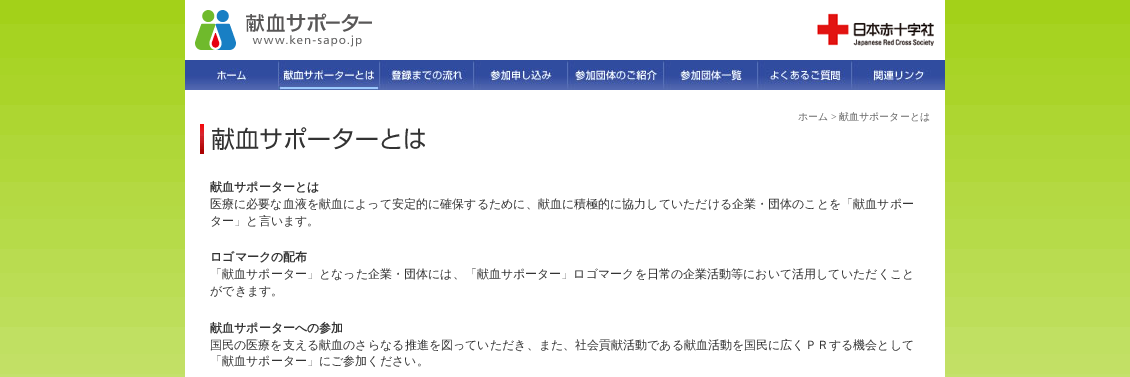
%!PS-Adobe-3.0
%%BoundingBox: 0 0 1130 377
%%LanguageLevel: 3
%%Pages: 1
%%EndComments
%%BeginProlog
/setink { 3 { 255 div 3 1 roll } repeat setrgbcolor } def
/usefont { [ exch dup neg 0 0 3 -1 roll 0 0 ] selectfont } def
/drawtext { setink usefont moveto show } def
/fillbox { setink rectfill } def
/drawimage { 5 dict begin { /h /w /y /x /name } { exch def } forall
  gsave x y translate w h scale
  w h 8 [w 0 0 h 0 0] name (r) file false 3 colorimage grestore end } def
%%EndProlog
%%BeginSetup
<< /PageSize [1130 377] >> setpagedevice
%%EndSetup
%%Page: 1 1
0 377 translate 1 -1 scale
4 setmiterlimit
0 0 1130 377 255 255 255 fillbox
(assets/img1.rgb) 0 0 1130 377 drawimage
185 0 760 377 255 255 255 fillbox
(assets/img2.rgb) 195 10 177 40 drawimage
(assets/img3.rgb) 817 13 117 33 drawimage
(assets/img4.rgb) 185 60 93 30 drawimage
(assets/img5.rgb) 278 60 101 30 drawimage
(assets/img6.rgb) 379 60 94 30 drawimage
(assets/img7.rgb) 473 60 94 30 drawimage
(assets/img8.rgb) 567 60 96 30 drawimage
(assets/img9.rgb) 663 60 94 30 drawimage
(assets/img10.rgb) 757 60 94 30 drawimage
(assets/img11.rgb) 851 60 94 30 drawimage
(ホーム) 798 120 /WenQuanYiZenHei-Medium 10 102 102 102 drawtext
(>) 831 120 /LiberationSerif-Regular 10 102 102 102 drawtext
(献血サポーターとは) 839 120 /WenQuanYiZenHei-Medium 10 102 102 102 drawtext
(assets/img12.rgb) 200 124 225 30 drawimage
(献血サポーターとは) 210 191 /WenQuanYiZenHei-Bold 12 51 51 51 drawtext
(医療に必要な血液を献血によって安定的に確保するために、献血に積極的に協力していただける企業・団体のことを「献血サポー) 210 208 /WenQuanYiZenHei-Medium 12 51 51 51 drawtext
(ター」と言います。) 210 225 /WenQuanYiZenHei-Medium 12 51 51 51 drawtext
(ロゴマークの配布) 210 261 /WenQuanYiZenHei-Bold 12 51 51 51 drawtext
(「献血サポーター」となった企業・団体には、「献血サポーター」ロゴマークを日常の企業活動等において活用していただくこと) 210 278 /WenQuanYiZenHei-Medium 12 51 51 51 drawtext
(ができます。) 210 295 /WenQuanYiZenHei-Medium 12 51 51 51 drawtext
(献血サポーターへの参加) 210 332 /WenQuanYiZenHei-Bold 12 51 51 51 drawtext
(国民の医療を支える献血のさらなる推進を図っていただき、また、社会貢献活動である献血活動を国民に広くＰＲする機会として) 210 349 /WenQuanYiZenHei-Medium 12 51 51 51 drawtext
(「献血サポーター」にご参加ください。) 210 365 /WenQuanYiZenHei-Medium 12 51 51 51 drawtext
showpage
%%EOF
